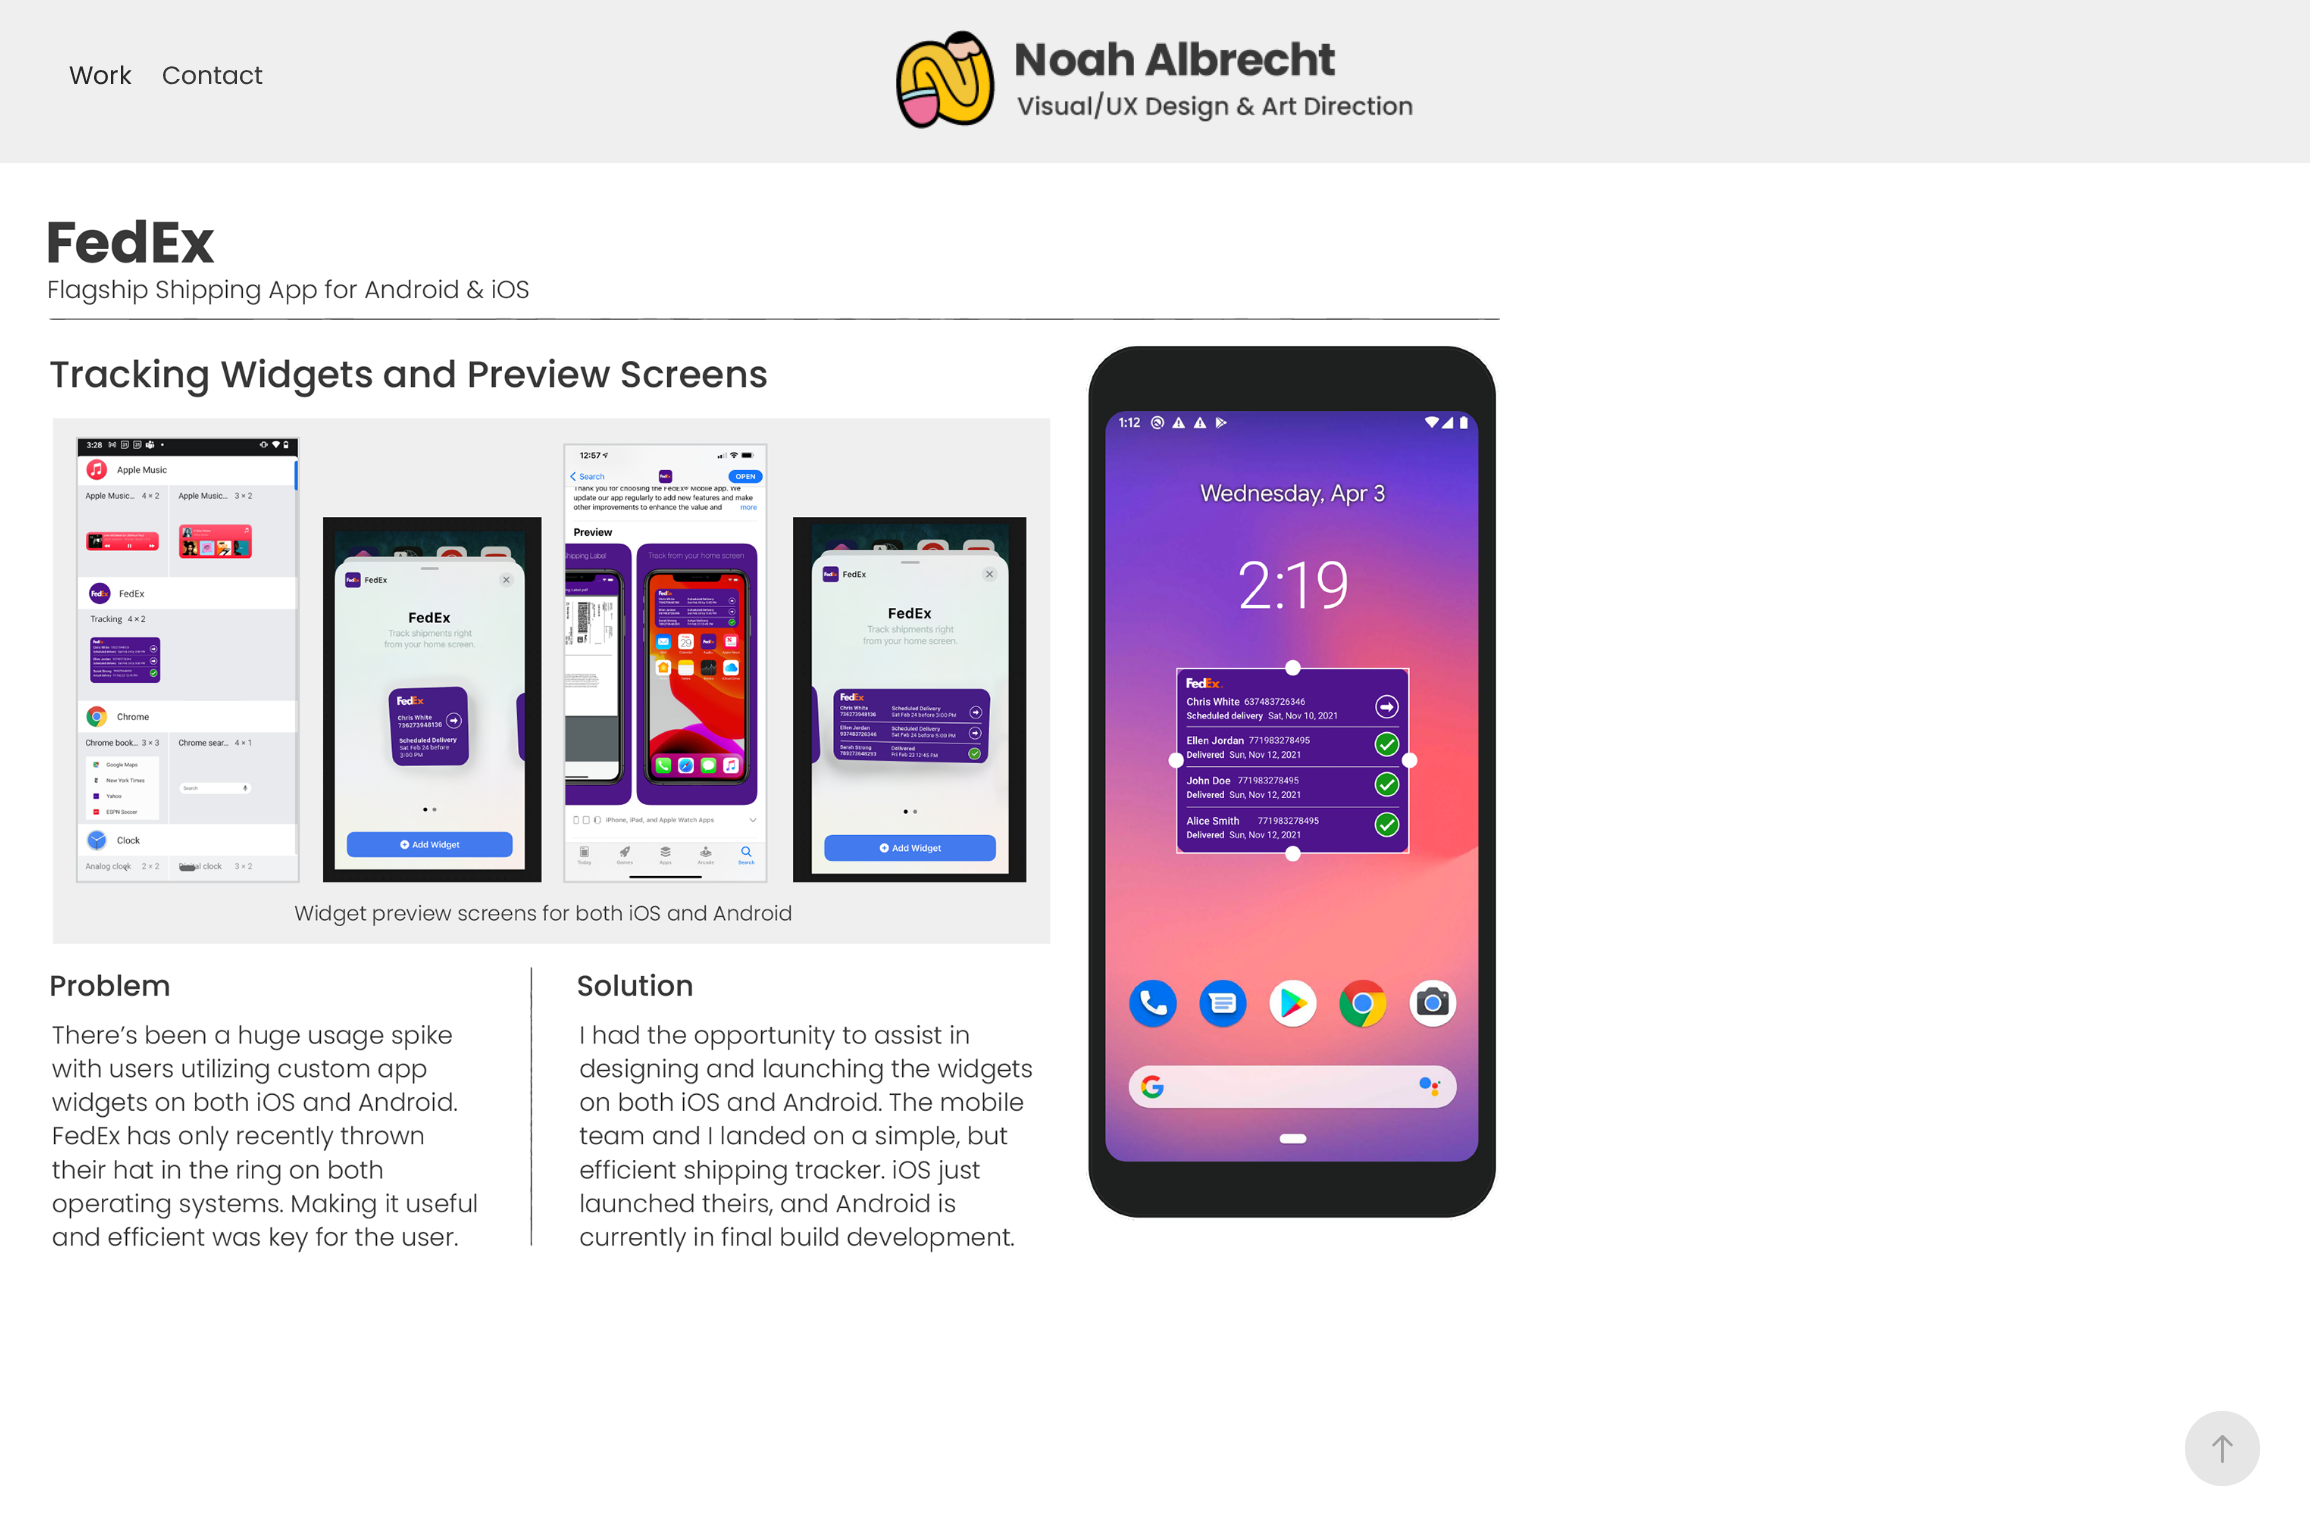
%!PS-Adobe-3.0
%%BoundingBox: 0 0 2310 1536
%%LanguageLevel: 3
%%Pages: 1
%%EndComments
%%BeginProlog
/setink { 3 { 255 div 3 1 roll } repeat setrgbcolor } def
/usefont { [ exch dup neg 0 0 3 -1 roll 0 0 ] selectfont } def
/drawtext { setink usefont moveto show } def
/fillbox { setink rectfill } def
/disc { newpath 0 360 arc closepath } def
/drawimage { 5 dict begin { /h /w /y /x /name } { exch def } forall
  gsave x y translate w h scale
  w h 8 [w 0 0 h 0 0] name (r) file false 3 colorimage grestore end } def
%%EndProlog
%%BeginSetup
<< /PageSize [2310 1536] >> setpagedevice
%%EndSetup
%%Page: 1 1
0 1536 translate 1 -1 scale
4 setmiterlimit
0 0 2310 1536 255 255 255 fillbox
0 0 2310 163 239 239 239 fillbox
(Work) 69 84 /Poppins-Regular 25 40 40 40 drawtext
(Contact) 162 84 /Poppins-Regular 25 56 56 56 drawtext
(assets/img1.rgb) 896 30 517 99 drawimage
(assets/img2.rgb) 48 219 1452 1034 drawimage
230 230 230 setink
2222.5 1448.5 37.5 disc fill
(assets/img3.rgb) 2212 1435 21 28 drawimage
showpage
%%EOF
